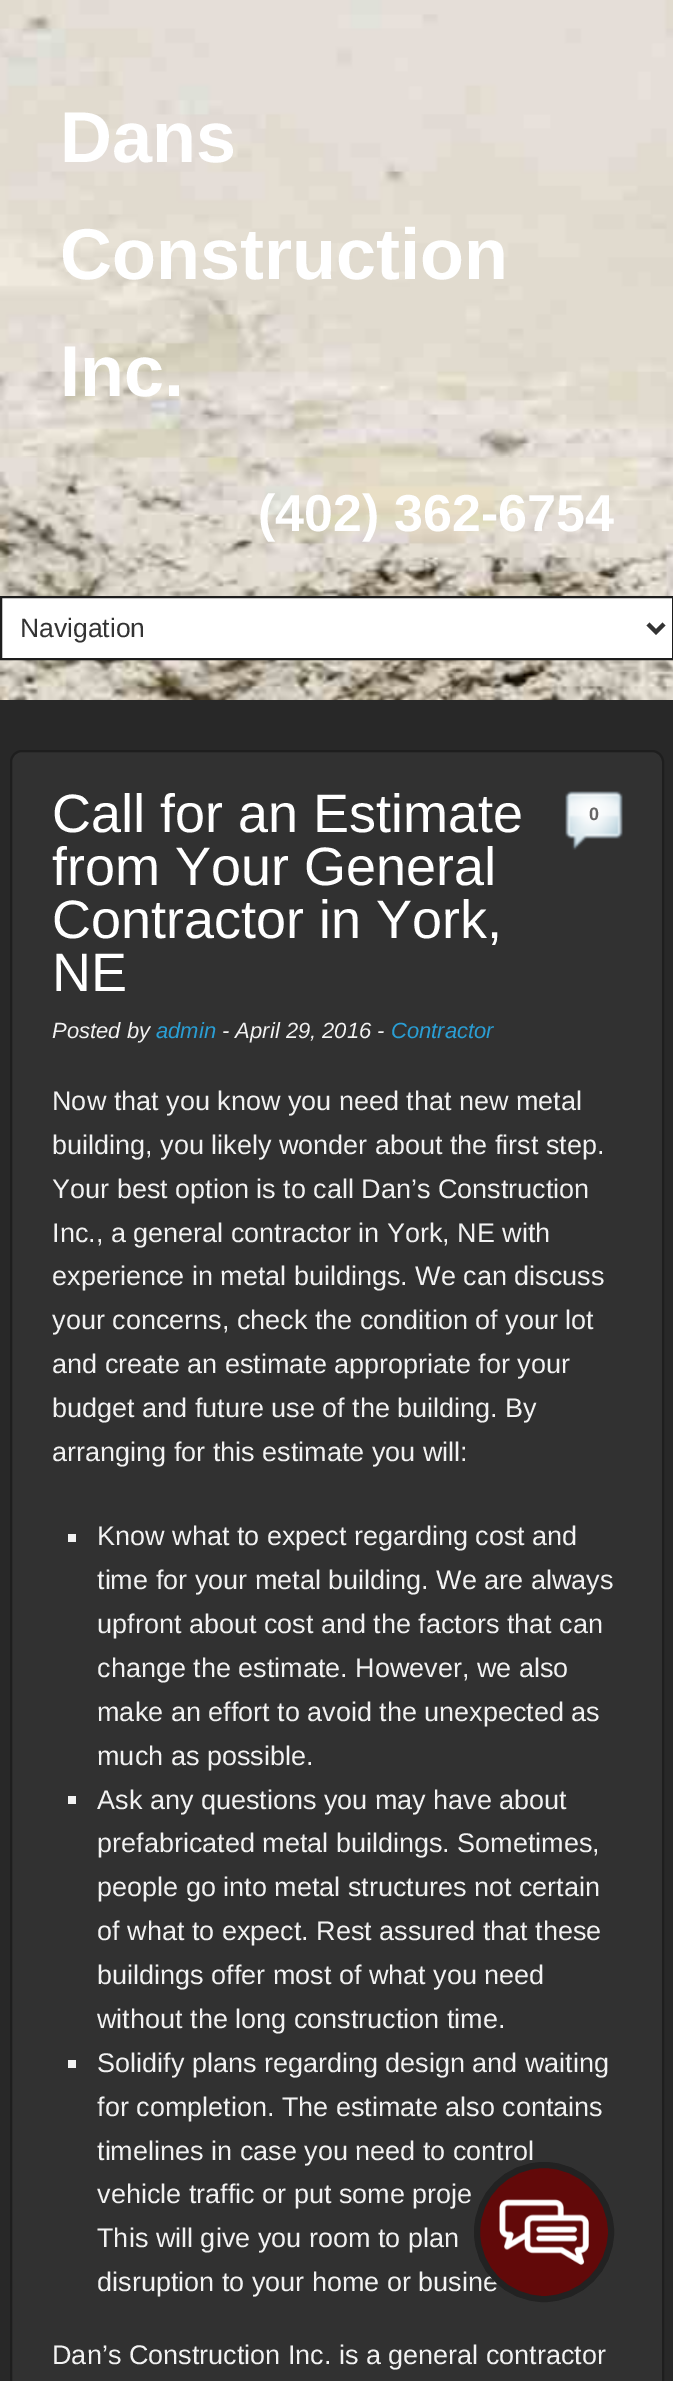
%!PS-Adobe-3.0
%%BoundingBox: 0 0 673 2381
%%LanguageLevel: 3
%%Pages: 1
%%EndComments
%%BeginProlog
/setink { 3 { 255 div 3 1 roll } repeat setrgbcolor } def
/usefont { [ exch dup neg 0 0 3 -1 roll 0 0 ] selectfont } def
/drawtext { setink usefont moveto show } def
/fillbox { setink rectfill } def
/disc { newpath 0 360 arc closepath } def
/rrect { 5 dict begin { /r /h /w /y /x } { exch def } forall
  x r add y moveto x w add y 2 copy h add r arct x w add y h add x 1 index r arct
  x y h add x y r arct x y 2 copy exch w add exch r arct closepath end } def
/drawimage { 5 dict begin { /h /w /y /x /name } { exch def } forall
  gsave x y translate w h scale
  w h 8 [w 0 0 h 0 0] name (r) file false 3 colorimage grestore end } def
%%EndProlog
%%BeginSetup
<< /PageSize [673 2381] >> setpagedevice
%%EndSetup
%%Page: 1 1
0 2381 translate 1 -1 scale
4 setmiterlimit
0 0 673 2381 255 255 255 fillbox
(assets/img1.rgb) 0 0 673 700 drawimage
(Dans) 60 162 /LiberationSans-Bold 72 255 255 255 drawtext
(Construction) 60 279 /LiberationSans-Bold 72 255 255 255 drawtext
(Inc.) 60 396 /LiberationSans-Bold 72 255 255 255 drawtext
(\(402\) 362-6754) 258 531 /LiberationSans-Bold 52 255 255 255 drawtext
1 597 moveto 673 597 lineto 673 659 lineto 1 659 lineto closepath gsave fill grestore
29 29 29 setink
2 setlinewidth
stroke
51 51 51 setink
4 setlinewidth
648 624 moveto 656 632 lineto 664 624 lineto stroke
(Navigation) 20 637 /LiberationSans-Regular 26.5 51 51 51 drawtext
0 700 673 1681 40 40 40 fillbox
49 49 49 setink
11 751 652 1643 11 rrect gsave fill grestore
30 30 30 setink
2 setlinewidth
stroke
(Call for an Estimate) 52 832 /LiberationSans-Regular 54 255 255 255 drawtext
(from Your General) 52 885 /LiberationSans-Regular 54 255 255 255 drawtext
(Contractor in York,) 52 938 /LiberationSans-Regular 54 255 255 255 drawtext
(NE) 52 991 /LiberationSans-Regular 54 255 255 255 drawtext
(assets/img2.rgb) 565 791 58 59 drawimage
(0) 589 820 /LiberationSans-Bold 18 102 102 102 drawtext
(Posted by) 52 1038 /LiberationSans-Italic 22 242 242 242 drawtext
(admin) 156 1038 /LiberationSans-Italic 22 42 158 212 drawtext
(- April 29, 2016 -) 222 1038 /LiberationSans-Italic 22 242 242 242 drawtext
(Contractor) 391 1038 /LiberationSans-Italic 22 42 158 212 drawtext
(Now that you know you need that new metal) 52 1110 /LiberationSans-Regular 27 242 242 242 drawtext
(building, you likely wonder about the first step.) 52 1154 /LiberationSans-Regular 27 242 242 242 drawtext
(Your best option is to call Dan’s Construction) 52 1198 /LiberationSans-Regular 27 242 242 242 drawtext
(Inc., a general contractor in York, NE with) 52 1242 /LiberationSans-Regular 27 242 242 242 drawtext
(experience in metal buildings. We can discuss) 52 1285 /LiberationSans-Regular 27 242 242 242 drawtext
(your concerns, check the condition of your lot) 52 1329 /LiberationSans-Regular 27 242 242 242 drawtext
(and create an estimate appropriate for your) 52 1373 /LiberationSans-Regular 27 242 242 242 drawtext
(budget and future use of the building. By) 52 1417 /LiberationSans-Regular 27 242 242 242 drawtext
(arranging for this estimate you will:) 52 1461 /LiberationSans-Regular 27 242 242 242 drawtext
68 1534 8 8 242 242 242 fillbox
(Know what to expect regarding cost and) 97 1545 /LiberationSans-Regular 27 242 242 242 drawtext
(time for your metal building. We are always) 97 1589 /LiberationSans-Regular 27 242 242 242 drawtext
(upfront about cost and the factors that can) 97 1633 /LiberationSans-Regular 27 242 242 242 drawtext
(change the estimate. However, we also) 97 1677 /LiberationSans-Regular 27 242 242 242 drawtext
(make an effort to avoid the unexpected as) 97 1721 /LiberationSans-Regular 27 242 242 242 drawtext
(much as possible.) 97 1765 /LiberationSans-Regular 27 242 242 242 drawtext
68 1796 8 8 242 242 242 fillbox
(Ask any questions you may have about) 97 1809 /LiberationSans-Regular 27 242 242 242 drawtext
(prefabricated metal buildings. Sometimes,) 97 1852 /LiberationSans-Regular 27 242 242 242 drawtext
(people go into metal structures not certain) 97 1896 /LiberationSans-Regular 27 242 242 242 drawtext
(of what to expect. Rest assured that these) 97 1940 /LiberationSans-Regular 27 242 242 242 drawtext
(buildings offer most of what you need) 97 1984 /LiberationSans-Regular 27 242 242 242 drawtext
(without the long construction time.) 97 2028 /LiberationSans-Regular 27 242 242 242 drawtext
68 2060 8 8 242 242 242 fillbox
(Solidify plans regarding design and waiting) 97 2072 /LiberationSans-Regular 27 242 242 242 drawtext
(for completion. The estimate also contains) 97 2116 /LiberationSans-Regular 27 242 242 242 drawtext
(timelines in case you need to control) 97 2160 /LiberationSans-Regular 27 242 242 242 drawtext
(vehicle traffic or put some proje) 97 2203 /LiberationSans-Regular 27 242 242 242 drawtext
(This will give you room to plan) 97 2247 /LiberationSans-Regular 27 242 242 242 drawtext
(disruption to your home or busine) 97 2291 /LiberationSans-Regular 27 242 242 242 drawtext
(Dan’s Construction Inc. is a general contractor) 52 2364 /LiberationSans-Regular 27 242 242 242 drawtext
98 9 9 setink
544 2232 67 disc gsave fill grestore
34 34 34 setink
6 setlinewidth
stroke
(assets/img3.rgb) 499 2199 90 66 drawimage
showpage
%%EOF
